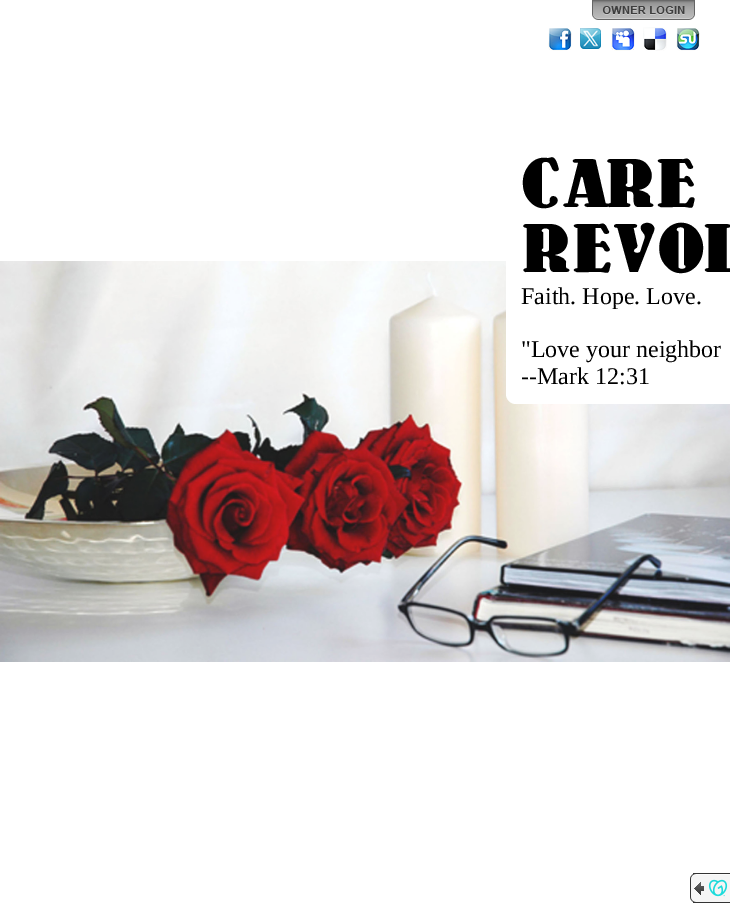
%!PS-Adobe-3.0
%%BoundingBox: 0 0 730 923
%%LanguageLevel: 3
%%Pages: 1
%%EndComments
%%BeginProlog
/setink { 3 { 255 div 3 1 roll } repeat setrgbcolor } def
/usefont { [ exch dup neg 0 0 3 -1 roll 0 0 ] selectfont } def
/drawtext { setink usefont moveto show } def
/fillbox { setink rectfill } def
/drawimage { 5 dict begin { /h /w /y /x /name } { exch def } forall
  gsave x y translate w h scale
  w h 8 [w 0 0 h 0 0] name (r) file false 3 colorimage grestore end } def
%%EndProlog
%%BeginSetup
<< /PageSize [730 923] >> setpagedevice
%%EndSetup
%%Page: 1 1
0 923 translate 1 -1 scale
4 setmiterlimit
0 0 730 923 255 255 255 fillbox
(assets/img1.rgb) 592 0 103 20 drawimage
(assets/img2.rgb) 548 28 24 23 drawimage
(assets/img3.rgb) 580 28 21 21 drawimage
(assets/img4.rgb) 611 28 24 23 drawimage
(assets/img5.rgb) 643 27 24 24 drawimage
(assets/img6.rgb) 676 28 24 23 drawimage
(assets/img10.rgb) 0 261 730 401 drawimage
516 138 moveto 730 138 lineto 730 404 lineto 516 404 lineto 510.5 404 506 399.5 506 394 curveto 506 148 lineto 506 142.5 510.5 138 516 138 curveto closepath fill
(CARE) 521 205 /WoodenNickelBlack-Black 65 0 0 0 drawtext
(REVOL) 521 270 /WoodenNickelBlack-Black 65 0 0 0 drawtext
(Faith. Hope. Love.) 521 304 /LiberationSerif-Regular 24 0 0 0 drawtext
("Love your neighbor) 521 357 /LiberationSerif-Regular 24 0 0 0 drawtext
(--Mark 12:31) 521 384 /LiberationSerif-Regular 24 0 0 0 drawtext
(assets/img7.rgb) 693 873 37 30 drawimage
(assets/img8.rgb) 690 874 14 28 drawimage
(assets/img9.rgb) 708 879 20 18 drawimage
showpage
%%EOF
